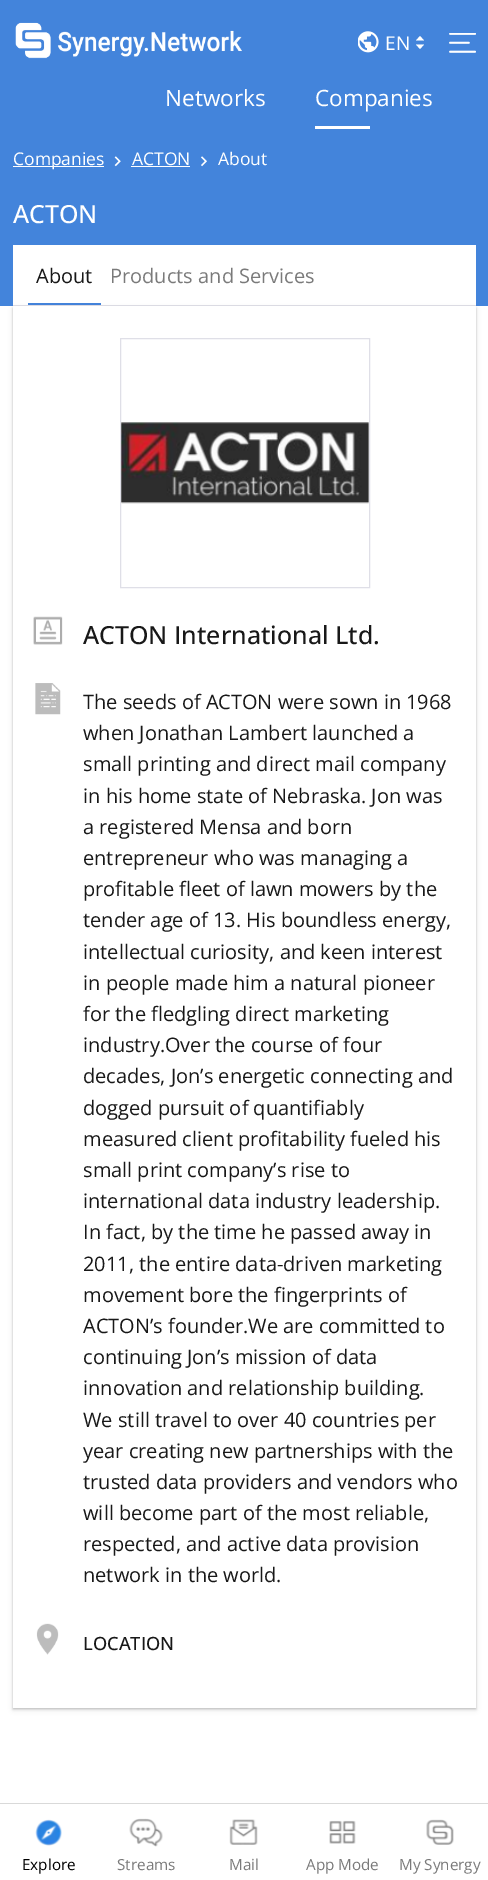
%!PS-Adobe-3.0
%%BoundingBox: 0 0 488 1880
%%LanguageLevel: 3
%%Pages: 1
%%EndComments
%%BeginProlog
/setink { 3 { 255 div 3 1 roll } repeat setrgbcolor } def
/usefont { [ exch dup neg 0 0 3 -1 roll 0 0 ] selectfont } def
/drawtext { setink usefont moveto show } def
/fillbox { setink rectfill } def
/setalpha { dup .setfillconstantalpha .setstrokeconstantalpha } def
/rrect { 5 dict begin { /r /h /w /y /x } { exch def } forall
  x r add y moveto x w add y 2 copy h add r arct x w add y h add x 1 index r arct
  x y h add x y r arct x y 2 copy exch w add exch r arct closepath end } def
/softshadow { 12 dict begin { /a /b /q /h /w /y /x } { exch def } forall gsave /was 0 def
  9 -2 -9 { dup b mul 4 div /e exch def 1 sub .425 mul 2.718 exch exp 1 add a .99 .min exch div /now exch def
    1 1 now sub 1 was sub div sub setalpha /was now def
    w h .min e 2 mul add 0 gt { x e sub y e sub w e 2 mul add h e 2 mul add
      q e add b .6 mul add w h .min 2 div e add .min 0 .max rrect fill } if } for grestore end } def
/drawimage { 5 dict begin { /h /w /y /x /name } { exch def } forall
  gsave x y translate w h scale
  w h 8 [w 0 0 h 0 0] name (r) file false 3 colorimage grestore end } def
%%EndProlog
%%BeginSetup
<< /PageSize [488 1880] /PageUsesTransparency true >> setpagedevice
%%EndSetup
%%Page: 1 1
0 .pushpdf14devicefilter
0 1880 translate 1 -1 scale
4 setmiterlimit
0 0 488 1880 255 255 255 fillbox
0 0 488 306 67 132 219 fillbox
(assets/img1.rgb) 15 22 227 37 drawimage
(assets/img2.rgb) 358 31 21 22 drawimage
(EN) 385 50 /OpenSans-Regular 19 255 255 255 drawtext
416 40.5 moveto 420 36 lineto 424 40.5 lineto closepath 416 44.5 moveto 424 44.5 lineto 420 49 lineto closepath fill
(assets/img3.rgb) 449 33 27 20 drawimage
(Networks) 165 106 /OpenSans-Regular 22.5 255 255 255 drawtext
(Companies) 315 106 /OpenSans-Regular 22.5 255 255 255 drawtext
315 126 55 3 255 255 255 fillbox
13 166 91 1 255 255 255 fillbox
(Companies) 13 165 /OpenSans-Regular 17.5 255 255 255 drawtext
(assets/img4.rgb) 114 156 7 11 drawimage
(ACTON) 132 165 /OpenSans-Regular 17.5 255 255 255 drawtext
131 166 59 1 255 255 255 fillbox
(assets/img5.rgb) 201 156 6 11 drawimage
(About) 218 165 /OpenSans-Regular 17.5 255 255 255 drawtext
(ACTON) 13 223 /OpenSans-Medium 25 255 255 255 drawtext
13 245 463 60 255 255 255 fillbox
13 305 463 1 223 223 231 fillbox
(About) 36 283 /OpenSans-Regular 20 24 24 24 drawtext
28 303 73 2 67 132 219 fillbox
(Products and Services) 110 283 /OpenSans-Regular 20 122 122 122 drawtext
0 0 0 setink
13 308 463 1401 0 1 0.2 softshadow
13 309 463 1401 0 2.5 0.1 softshadow
13 306 463 1402 255 255 255 fillbox
223 223 231 setink
120.5 338.5 249 249 rectstroke
(assets/img6.rgb) 121 422 248 82 drawimage
(assets/img7.rgb) 33 616 30 29 drawimage
(ACTON International Ltd.) 83 644 /OpenSans-Medium 25 24 24 24 drawtext
(assets/img8.rgb) 35 683 26 32 drawimage
(The seeds of ACTON were sown in 1968) 83 709 /OpenSans-Regular 20 24 24 24 drawtext
(when Jonathan Lambert launched a) 83 740 /OpenSans-Regular 20 24 24 24 drawtext
(small printing and direct mail company) 83 771 /OpenSans-Regular 20 24 24 24 drawtext
(in his home state of Nebraska. Jon was) 83 803 /OpenSans-Regular 20 24 24 24 drawtext
(a registered Mensa and born) 83 834 /OpenSans-Regular 20 24 24 24 drawtext
(entrepreneur who was managing a) 83 865 /OpenSans-Regular 20 24 24 24 drawtext
(profitable fleet of lawn mowers by the) 83 896 /OpenSans-Regular 20 24 24 24 drawtext
(tender age of 13. His boundless energy,) 83 927 /OpenSans-Regular 20 24 24 24 drawtext
(intellectual curiosity, and keen interest) 83 959 /OpenSans-Regular 20 24 24 24 drawtext
(in people made him a natural pioneer) 83 990 /OpenSans-Regular 20 24 24 24 drawtext
(for the fledgling direct marketing) 83 1021 /OpenSans-Regular 20 24 24 24 drawtext
(industry.Over the course of four) 83 1052 /OpenSans-Regular 20 24 24 24 drawtext
(decades, Jon’s energetic connecting and) 83 1083 /OpenSans-Regular 20 24 24 24 drawtext
(dogged pursuit of quantifiably) 83 1115 /OpenSans-Regular 20 24 24 24 drawtext
(measured client profitability fueled his) 83 1146 /OpenSans-Regular 20 24 24 24 drawtext
(small print company’s rise to) 83 1177 /OpenSans-Regular 20 24 24 24 drawtext
(international data industry leadership.) 83 1208 /OpenSans-Regular 20 24 24 24 drawtext
(In fact, by the time he passed away in) 83 1239 /OpenSans-Regular 20 24 24 24 drawtext
(2011, the entire data-driven marketing) 83 1271 /OpenSans-Regular 20 24 24 24 drawtext
(movement bore the fingerprints of) 83 1302 /OpenSans-Regular 20 24 24 24 drawtext
(ACTON’s founder.We are committed to) 83 1333 /OpenSans-Regular 20 24 24 24 drawtext
(continuing Jon’s mission of data) 83 1364 /OpenSans-Regular 20 24 24 24 drawtext
(innovation and relationship building.) 83 1395 /OpenSans-Regular 20 24 24 24 drawtext
(We still travel to over 40 countries per) 83 1427 /OpenSans-Regular 20 24 24 24 drawtext
(year creating new partnerships with the) 83 1458 /OpenSans-Regular 20 24 24 24 drawtext
(trusted data providers and vendors who) 83 1489 /OpenSans-Regular 20 24 24 24 drawtext
(will become part of the most reliable,) 83 1520 /OpenSans-Regular 20 24 24 24 drawtext
(respected, and active data provision) 83 1551 /OpenSans-Regular 20 24 24 24 drawtext
(network in the world.) 83 1582 /OpenSans-Regular 20 24 24 24 drawtext
(assets/img9.rgb) 36 1623 23 32 drawimage
(LOCATION) 83 1650 /OpenSans-Medium 18.25 24 24 24 drawtext
0 1803 488 1 217 217 217 fillbox
(assets/img10.rgb) 35 1819 27 27 drawimage
(Explore) 22 1870 /OpenSans-Regular 15.25 0 0 0 drawtext
(assets/img11.rgb) 129 1818 34 29 drawimage
(Streams) 117 1870 /OpenSans-Regular 15.25 122 122 122 drawtext
(assets/img12.rgb) 229 1819 29 26 drawimage
(Mail) 229 1870 /OpenSans-Regular 15.25 122 122 122 drawtext
(assets/img13.rgb) 329 1820 27 24 drawimage
(App Mode) 306 1870 /OpenSans-Regular 15.25 122 122 122 drawtext
(assets/img14.rgb) 426 1819 28 26 drawimage
(My Synergy) 399 1870 /OpenSans-Regular 15.25 122 122 122 drawtext
.poppdf14devicefilter showpage
%%EOF
